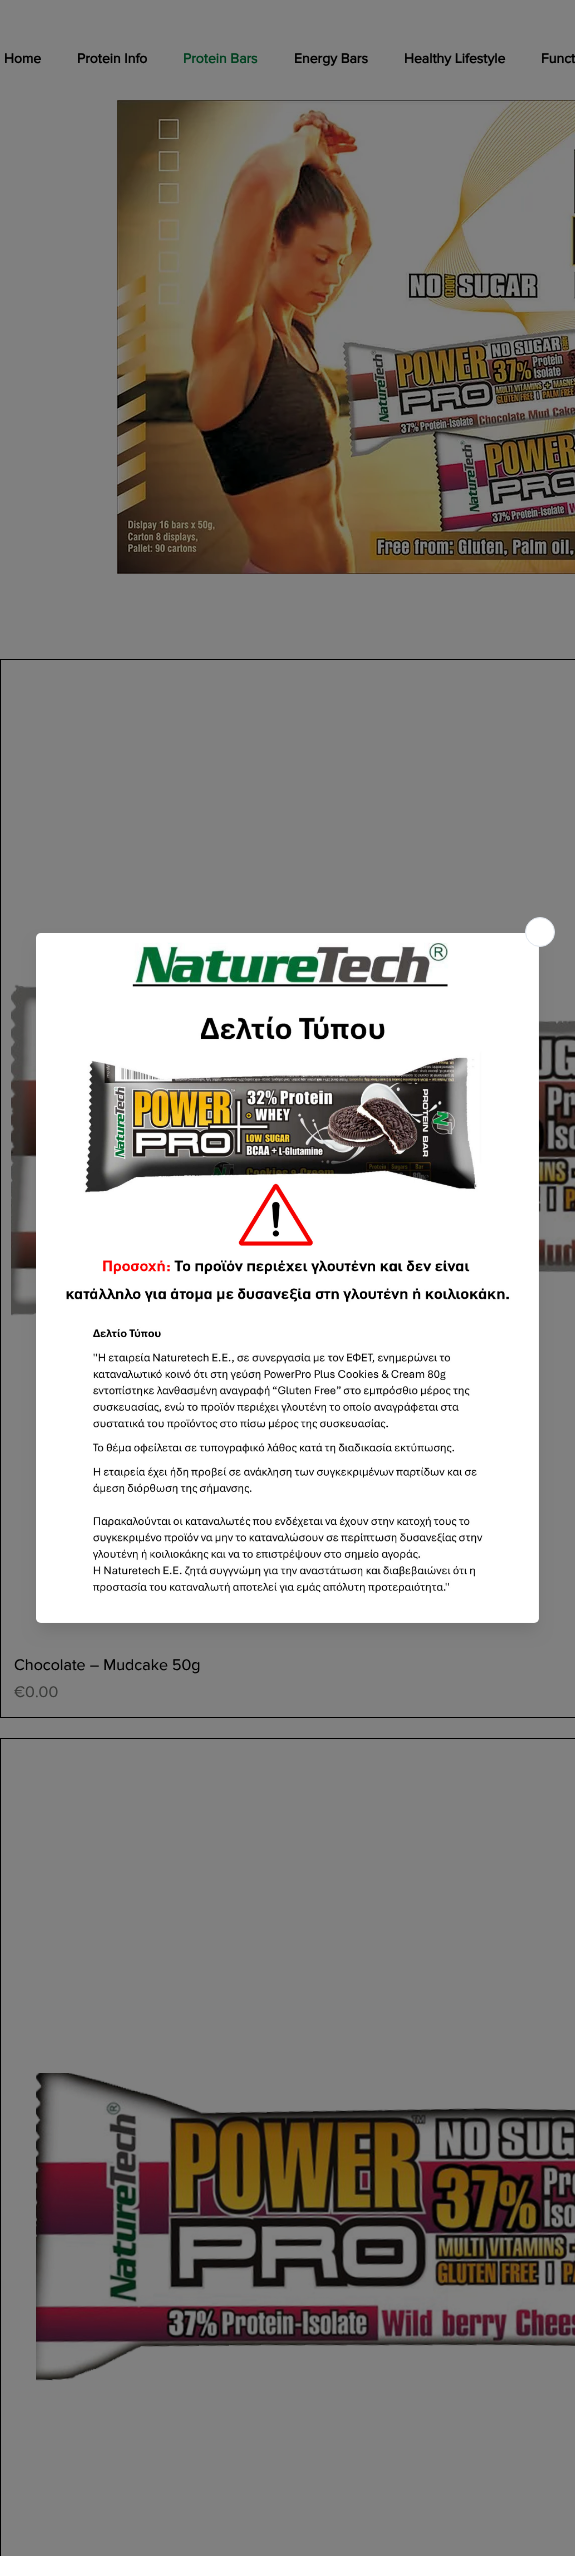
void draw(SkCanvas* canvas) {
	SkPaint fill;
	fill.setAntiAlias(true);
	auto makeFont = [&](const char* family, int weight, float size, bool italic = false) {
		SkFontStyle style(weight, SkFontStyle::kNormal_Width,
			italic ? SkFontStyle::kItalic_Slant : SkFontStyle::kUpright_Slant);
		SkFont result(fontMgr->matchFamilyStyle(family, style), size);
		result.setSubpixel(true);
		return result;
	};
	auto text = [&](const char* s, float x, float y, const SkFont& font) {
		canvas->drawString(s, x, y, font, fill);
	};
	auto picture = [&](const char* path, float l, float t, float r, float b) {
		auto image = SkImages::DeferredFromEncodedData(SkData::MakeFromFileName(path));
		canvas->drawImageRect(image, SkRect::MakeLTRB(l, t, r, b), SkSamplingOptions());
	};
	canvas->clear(0xFF808080);
	picture("image0.png", 117, 100, 575, 574);
	fill.setStyle(SkPaint::kStroke_Style);
	fill.setStrokeWidth(1);
	fill.setColor(0xFF000000);
	canvas->drawRect(SkRect::MakeLTRB(0.5f, 659.5f, 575.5f, 1717.5f), fill);
	picture("image1.png", 11, 984, 575, 1316);
	canvas->drawRect(SkRect::MakeLTRB(0.5f, 1738.5f, 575.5f, 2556.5f), fill);
	picture("image2.png", 36, 2073, 575, 2381);
	fill.setStyle(SkPaint::kFill_Style);
	fill.setColor(0x1A000000);
	fill.setMaskFilter(SkMaskFilter::MakeBlur(kNormal_SkBlurStyle, 7.5f));
	canvas->drawRoundRect(SkRect::MakeLTRB(39, 946, 536, 1630), 2, 2, fill);
	fill.setMaskFilter(nullptr);
	canvas->save();
	canvas->clipRect(SkRect::MakeLTRB(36, 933, 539, 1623));
	fill.setColor(0x1F000000);
	fill.setMaskFilter(SkMaskFilter::MakeBlur(kNormal_SkBlurStyle, 10));
	canvas->drawRoundRect(SkRect::MakeLTRB(39, 936, 536, 1620), 2, 2, fill);
	fill.setMaskFilter(nullptr);
	canvas->restore();
	picture("image3.png", 36, 933, 539, 1623);
	fill.setColor(0xFFFFFFFF);
	canvas->drawCircle(540, 932, 14.5f, fill);
	fill.setStyle(SkPaint::kStroke_Style);
	fill.setColor(0xFFE2E8F0);
	canvas->drawCircle(540, 932, 14.5f, fill);
	auto font1 = makeFont("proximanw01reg", 700, 14);
	fill.setStyle(SkPaint::kFill_Style);
	fill.setColor(0xFF000000);
	text("Home", 4, 63, font1);
	text("Protein Info", 77, 63, font1);
	fill.setColor(0xFF00401F);
	text("Protein Bars", 183, 63, font1);
	fill.setColor(0xFF000000);
	text("Energy Bars", 294, 63, font1);
	text("Healthy Lifestyle", 404, 63, font1);
	text("Funct", 541, 63, font1);
	auto font2 = makeFont("proximanw01reg", 400, 16);
	text("Chocolate – Mudcake 50g", 14, 1670, font2);
	fill.setColor(0xFF3B3C3A);
	text("€0.00", 14, 1697, font2);
}
